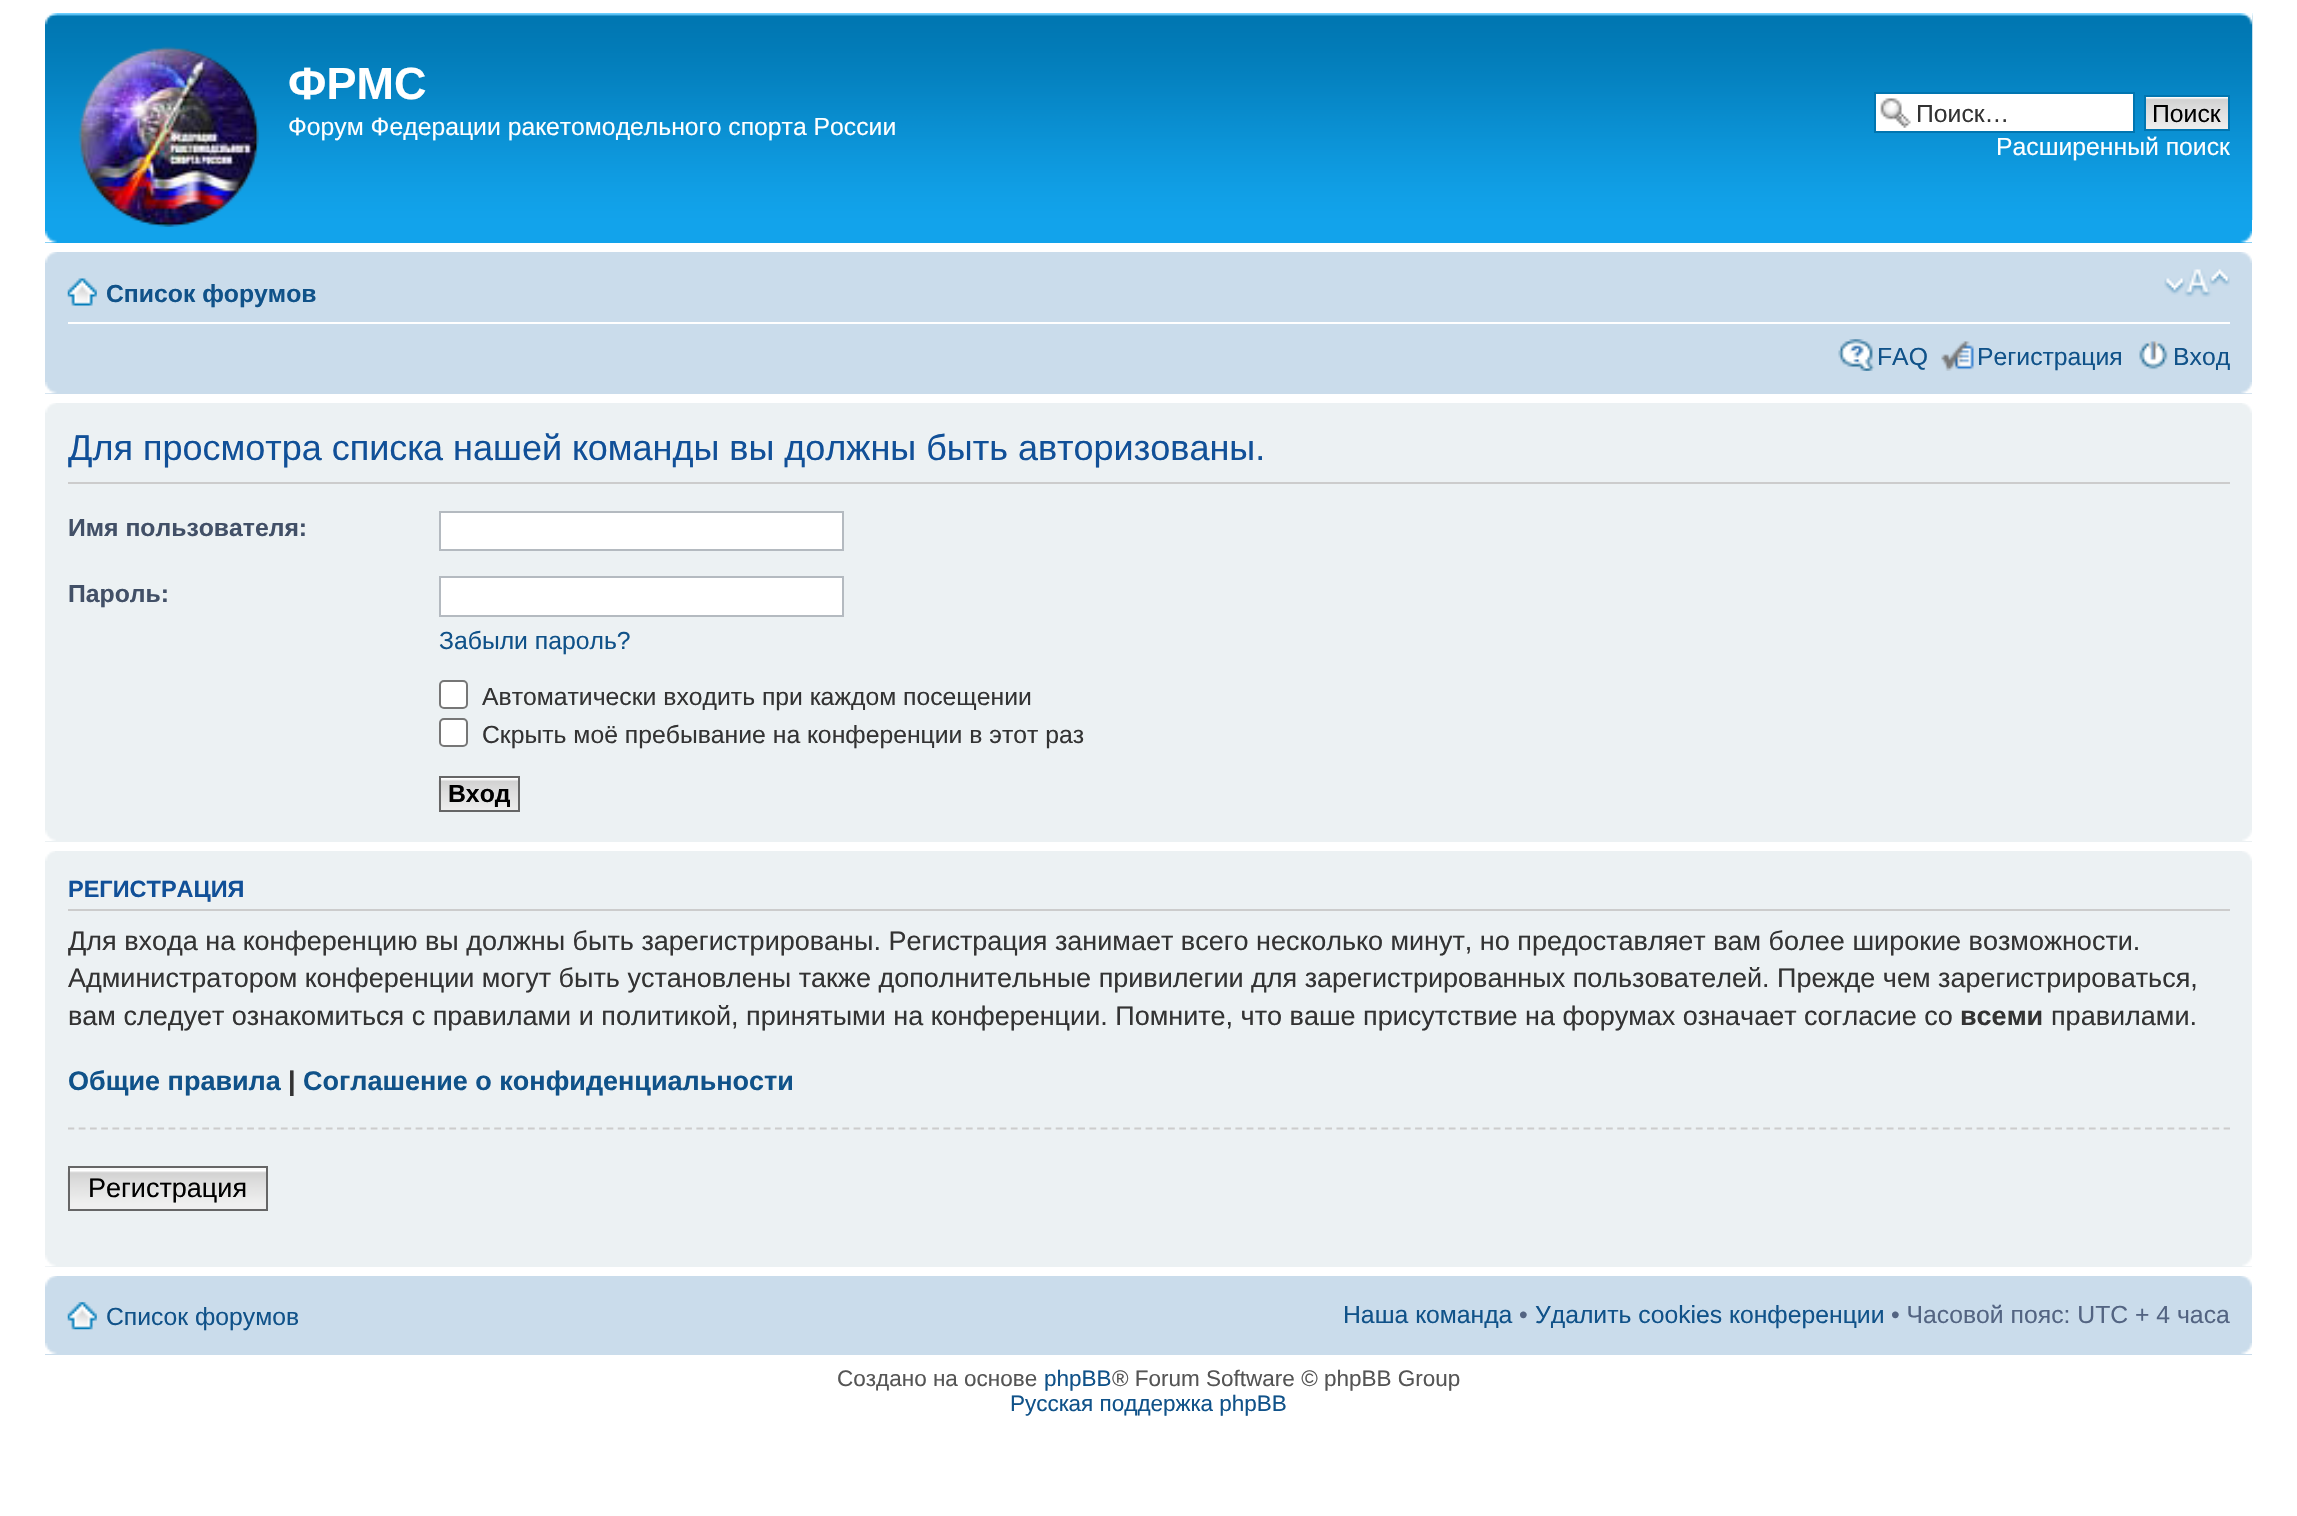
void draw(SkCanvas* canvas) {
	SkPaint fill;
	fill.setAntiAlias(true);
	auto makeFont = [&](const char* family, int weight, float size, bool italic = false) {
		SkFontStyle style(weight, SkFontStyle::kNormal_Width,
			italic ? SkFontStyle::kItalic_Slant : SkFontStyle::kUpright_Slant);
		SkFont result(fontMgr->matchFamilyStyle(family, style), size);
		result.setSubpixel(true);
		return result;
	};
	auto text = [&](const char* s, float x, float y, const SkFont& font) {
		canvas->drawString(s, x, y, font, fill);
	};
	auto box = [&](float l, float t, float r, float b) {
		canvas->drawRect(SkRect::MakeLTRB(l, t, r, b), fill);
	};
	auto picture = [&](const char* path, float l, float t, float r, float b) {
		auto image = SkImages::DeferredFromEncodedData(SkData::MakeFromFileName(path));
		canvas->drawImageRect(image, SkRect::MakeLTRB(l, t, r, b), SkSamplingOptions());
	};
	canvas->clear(0xFFFFFFFF);
	fill.setColor(0xFF12A3EB);
	box(45, 220, 2252, 243);
	picture("image0.png", 45, 13, 2253, 220);
	picture("image1.png", 45, 13, 57, 25);
	picture("image2.png", 2240, 13, 2253, 25);
	picture("image3.png", 78, 46, 259, 227);
	fill.setColor(0xFFFFFFFF);
	box(1876, 94, 2133, 131);
	picture("image4.png", 1880, 98, 1911, 128);
	fill.setStyle(SkPaint::kStroke_Style);
	fill.setStrokeWidth(2);
	fill.setColor(0xFF0075B0);
	canvas->drawRect(SkRect::MakeLTRB(1875, 93, 2134, 132), fill);
	fill.setStyle(SkPaint::kFill_Style);
	fill.setColor(0xFFFAFAFA);
	box(2146, 97, 2228, 98);
	picture("image5.png", 2146, 98, 2228, 129);
	fill.setStyle(SkPaint::kStroke_Style);
	fill.setColor(0xFF0075B0);
	canvas->drawRect(SkRect::MakeLTRB(2145, 96, 2229, 130), fill);
	picture("image6.png", 45, 231, 57, 243);
	picture("image7.png", 2240, 231, 2252, 243);
	fill.setStyle(SkPaint::kFill_Style);
	fill.setColor(0xFFCADCEB);
	box(45, 252, 2252, 394);
	picture("image8.png", 45, 252, 57, 263);
	picture("image9.png", 2240, 252, 2252, 263);
	fill.setColor(0xFFFFFFFF);
	box(68, 322, 2230, 324);
	picture("image10.png", 67, 278, 97, 306);
	picture("image11.png", 2164, 269, 2230, 297);
	picture("image12.png", 1838, 339, 1875, 371);
	picture("image13.png", 1941, 341, 1974, 371);
	picture("image14.png", 2139, 341, 2168, 370);
	picture("image15.png", 45, 382, 57, 394);
	picture("image16.png", 2241, 382, 2252, 394);
	fill.setColor(0xFFECF1F3);
	box(45, 403, 2252, 842);
	picture("image17.png", 45, 403, 56, 413);
	picture("image18.png", 2242, 403, 2252, 413);
	fill.setColor(0xFFCCCCCC);
	box(68, 482, 2230, 484);
	fill.setColor(0xFFFFFFFF);
	canvas->drawRect(SkRect::MakeLTRB(440, 512, 843, 550), fill);
	fill.setStyle(SkPaint::kStroke_Style);
	fill.setColor(0xFFB4BAC0);
	canvas->drawRect(SkRect::MakeLTRB(440, 512, 843, 550), fill);
	fill.setStyle(SkPaint::kFill_Style);
	fill.setColor(0xFFFFFFFF);
	canvas->drawRect(SkRect::MakeLTRB(440, 577, 843, 616), fill);
	fill.setStyle(SkPaint::kStroke_Style);
	fill.setColor(0xFFB4BAC0);
	canvas->drawRect(SkRect::MakeLTRB(440, 577, 843, 616), fill);
	fill.setStyle(SkPaint::kFill_Style);
	fill.setColor(0xFFFFFFFF);
	canvas->drawRoundRect(SkRect::MakeLTRB(440, 681, 467, 708), 4, 4, fill);
	fill.setStyle(SkPaint::kStroke_Style);
	fill.setColor(0xFF767676);
	canvas->drawRoundRect(SkRect::MakeLTRB(440, 681, 467, 708), 4, 4, fill);
	fill.setStyle(SkPaint::kFill_Style);
	fill.setColor(0xFFFFFFFF);
	canvas->drawRoundRect(SkRect::MakeLTRB(440, 719, 467, 746), 4, 4, fill);
	fill.setStyle(SkPaint::kStroke_Style);
	fill.setColor(0xFF767676);
	canvas->drawRoundRect(SkRect::MakeLTRB(440, 719, 467, 746), 4, 4, fill);
	picture("image19.png", 438, 778, 518, 812);
	fill.setColor(0xFF666666);
	canvas->drawRect(SkRect::MakeLTRB(440, 777, 519, 811), fill);
	picture("image20.png", 45, 830, 56, 841);
	picture("image21.png", 2242, 830, 2252, 841);
	fill.setStyle(SkPaint::kFill_Style);
	fill.setColor(0xFFECF1F3);
	box(45, 851, 2252, 1267);
	picture("image22.png", 45, 851, 55, 861);
	picture("image23.png", 2242, 851, 2252, 861);
	fill.setColor(0xFFCCCCCC);
	box(68, 909, 2230, 911);
	canvas->save();
	canvas->clipRect(SkRect::MakeLTRB(68, 862, 2230, 1256));
	fill.setStyle(SkPaint::kStroke_Style);
	fill.setStrokeWidth(2.2f);
	fill.setPathEffect(SkDashPathEffect::Make({{6.75f, 4.48f}}, 0));
	canvas->drawPath(SkPathBuilder().moveTo(67.5f, 1128.5f).lineTo(2230, 1128.5f).detach(), fill);
	fill.setPathEffect(nullptr);
	canvas->restore();
	picture("image24.png", 67, 1170, 266, 1210);
	fill.setStyle(SkPaint::kFill_Style);
	fill.setColor(0xFFFAFAFA);
	box(70, 1168, 266, 1170);
	fill.setStyle(SkPaint::kStroke_Style);
	fill.setStrokeWidth(2);
	fill.setColor(0xFF666666);
	canvas->drawRect(SkRect::MakeLTRB(69, 1167, 267, 1210), fill);
	picture("image25.png", 45, 1255, 56, 1267);
	picture("image26.png", 2242, 1255, 2252, 1267);
	fill.setStyle(SkPaint::kFill_Style);
	fill.setColor(0xFFCADCEB);
	box(45, 1276, 2252, 1355);
	picture("image27.png", 45, 1276, 57, 1287);
	picture("image28.png", 2240, 1276, 2252, 1287);
	picture("image29.png", 67, 1302, 97, 1330);
	picture("image30.png", 45, 1343, 57, 1354);
	picture("image31.png", 2241, 1343, 2252, 1354);
	auto font1 = makeFont("Liberation Sans", 700, 45);
	fill.setColor(0xFFFFFFFF);
	text("ФРМС", 288, 99, font1);
	auto font2 = makeFont("Liberation Sans", 400, 24.75f);
	text("Форум Федерации ракетомодельного спорта России", 288, 135, font2);
	fill.setColor(0xFF333333);
	text("Поиск…", 1916, 122, font2);
	fill.setColor(0xFF000000);
	text("Поиск", 2152, 122, font2);
	fill.setColor(0xFFFFFFFF);
	text("Расширенный поиск", 1996, 155, font2);
	auto font3 = makeFont("Liberation Sans", 700, 24.75f);
	fill.setColor(0xFF105289);
	text("Список форумов", 106, 302, font3);
	text("FAQ", 1877, 365, font2);
	text("Регистрация", 1977, 365, font2);
	text("Вход", 2173, 365, font2);
	canvas->save();
	canvas->clipRect(SkRect::MakeLTRB(68, 414, 2230, 830));
	auto font4 = makeFont("Liberation Sans", 400, 36);
	fill.setColor(0xFF115098);
	text("Для просмотра списка нашей команды вы должны быть авторизованы.", 68, 460, font4);
	canvas->restore();
	fill.setColor(0xFF425067);
	text("Имя пользователя:", 68, 536, font3);
	text("Пароль:", 68, 602, font3);
	fill.setColor(0xFF105289);
	text("Забыли пароль?", 439, 649, font2);
	fill.setColor(0xFF333333);
	text("Автоматически входить при каждом посещении", 482, 705, font2);
	text("Скрыть моё пребывание на конференции в этот раз", 482, 743, font2);
	fill.setColor(0xFF000000);
	text("Вход", 448, 802, font3);
	auto font5 = makeFont("Liberation Sans", 700, 23.5f);
	fill.setColor(0xFF115098);
	text("РЕГИСТРАЦИЯ", 68, 897, font5);
	canvas->save();
	canvas->clipRect(SkRect::MakeLTRB(68, 862, 2230, 1256));
	auto font6 = makeFont("Liberation Sans", 400, 27);
	fill.setColor(0xFF333333);
	text("Для входа на конференцию вы должны быть зарегистрированы. Регистрация занимает всего несколько минут, но предоставляет вам более широкие возможности.", 68, 950, font6);
	canvas->restore();
	text("Администратором конференции могут быть установлены также дополнительные привилегии для зарегистрированных пользователей. Прежде чем зарегистрироваться,", 68, 987, font6);
	text("вам следует ознакомиться с правилами и политикой, принятыми на конференции. Помните, что ваше присутствие на форумах означает согласие со", 68, 1025, font6);
	auto font7 = makeFont("Liberation Sans", 700, 27);
	text("всеми", 1960, 1025, font7);
	text("правилами.", 2051, 1025, font6);
	fill.setColor(0xFF105289);
	text("Общие правила", 68, 1090, font7);
	fill.setColor(0xFF333333);
	text("|", 288, 1090, font7);
	fill.setColor(0xFF105289);
	text("Соглашение о конфиденциальности", 303, 1090, font7);
	fill.setColor(0xFF000000);
	text("Регистрация", 88, 1197, font6);
	fill.setColor(0xFF105289);
	text("Список форумов", 106, 1325, font2);
	text("Наша команда", 1343, 1323, font2);
	fill.setColor(0xFF536482);
	text("•", 1519, 1323, font2);
	fill.setColor(0xFF105289);
	text("Удалить cookies конференции", 1535, 1323, font2);
	fill.setColor(0xFF536482);
	text("• Часовой пояс: UTC + 4 часа", 1891, 1323, font2);
	auto font8 = makeFont("Liberation Sans", 400, 22.5f);
	fill.setColor(0xFF555555);
	text("Создано на основе", 837, 1386, font8);
	fill.setColor(0xFF105289);
	text("phpBB", 1044, 1386, font8);
	fill.setColor(0xFF555555);
	text("® Forum Software © phpBB Group", 1112, 1386, font8);
	fill.setColor(0xFF105289);
	text("Русская поддержка phpBB", 1010, 1411, font8);
}
